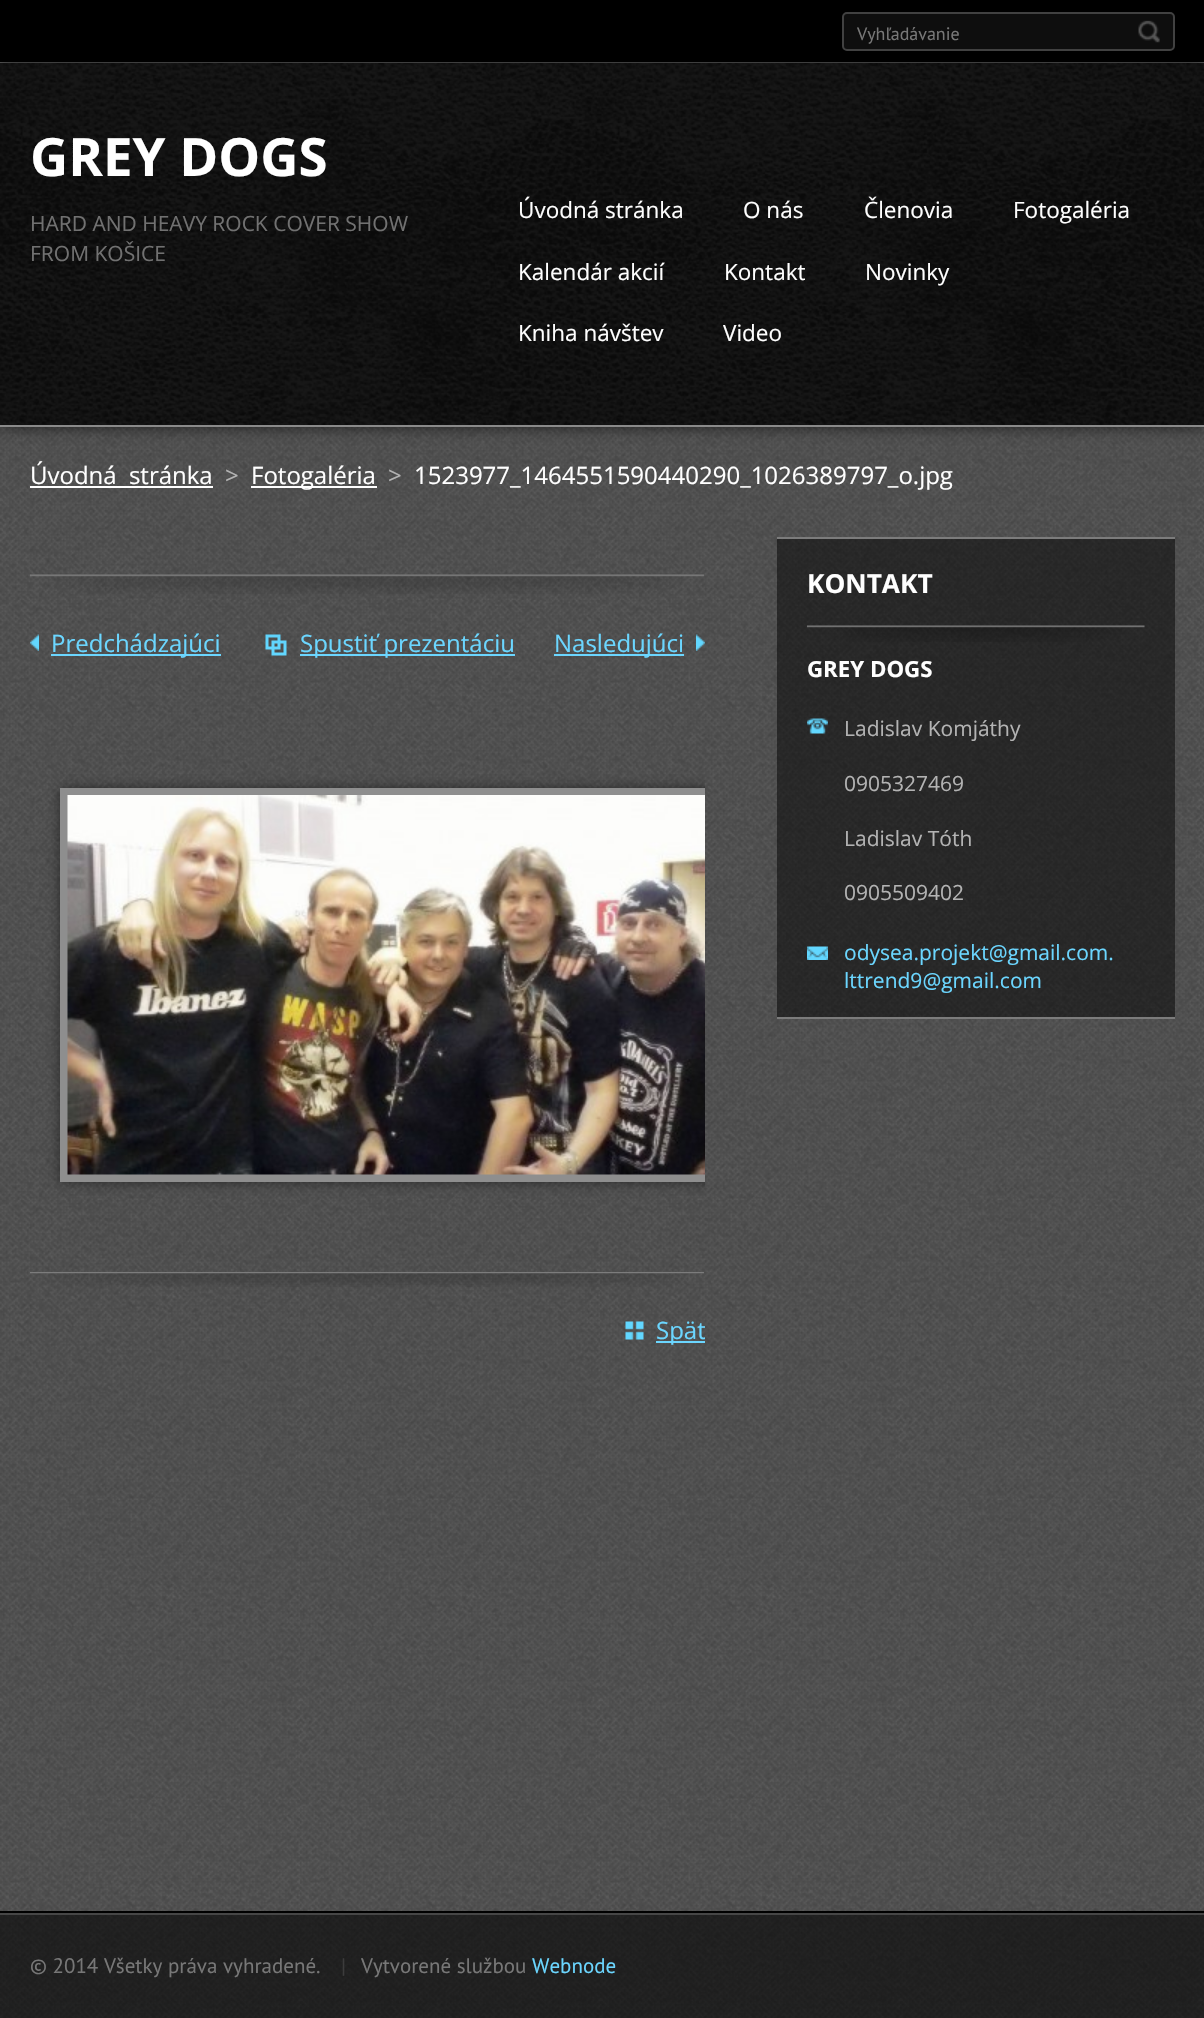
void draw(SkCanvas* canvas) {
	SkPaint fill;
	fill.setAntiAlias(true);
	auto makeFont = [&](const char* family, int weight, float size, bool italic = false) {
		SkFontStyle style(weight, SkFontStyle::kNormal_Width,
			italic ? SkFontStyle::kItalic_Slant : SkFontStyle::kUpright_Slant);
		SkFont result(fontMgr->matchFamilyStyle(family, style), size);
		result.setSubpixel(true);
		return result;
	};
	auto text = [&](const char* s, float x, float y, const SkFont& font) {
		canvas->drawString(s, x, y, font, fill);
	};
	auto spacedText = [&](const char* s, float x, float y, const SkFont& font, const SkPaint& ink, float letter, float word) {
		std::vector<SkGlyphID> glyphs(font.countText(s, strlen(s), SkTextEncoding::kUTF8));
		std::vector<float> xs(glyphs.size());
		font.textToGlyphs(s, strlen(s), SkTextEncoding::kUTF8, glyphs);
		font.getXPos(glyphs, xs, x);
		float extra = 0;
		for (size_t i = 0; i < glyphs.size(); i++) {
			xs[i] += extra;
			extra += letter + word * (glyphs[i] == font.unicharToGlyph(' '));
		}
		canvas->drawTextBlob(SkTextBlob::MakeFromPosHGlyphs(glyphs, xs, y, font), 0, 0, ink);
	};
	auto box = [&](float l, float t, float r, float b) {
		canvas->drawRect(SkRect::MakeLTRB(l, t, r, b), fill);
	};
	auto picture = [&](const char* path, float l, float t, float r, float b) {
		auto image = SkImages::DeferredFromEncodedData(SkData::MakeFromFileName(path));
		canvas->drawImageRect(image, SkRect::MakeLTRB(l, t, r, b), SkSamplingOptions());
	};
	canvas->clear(0xFFFFFFFF);
	picture("image0.png", 0, 427, 1204, 2018);
	fill.setColor(0xFF000000);
	box(0, 0, 1204, 62);
	fill.setColor(0xFF5E5E5E);
	box(0, 62, 1204, 63);
	fill.setColor(0xB3000000);
	fill.setMaskFilter(SkMaskFilter::MakeBlur(kNormal_SkBlurStyle, 7.5f));
	canvas->drawRect(SkRect::MakeLTRB(0, 63, 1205, 426), fill);
	fill.setMaskFilter(nullptr);
	fill.setColor(0xFF0E0E0E);
	canvas->drawRoundRect(SkRect::MakeLTRB(843, 13, 1174, 50), 4, 4, fill);
	fill.setStyle(SkPaint::kStroke_Style);
	fill.setStrokeWidth(2);
	fill.setColor(0xFF414141);
	canvas->drawRoundRect(SkRect::MakeLTRB(843, 13, 1174, 50), 4, 4, fill);
	picture("image1.png", 1138, 20, 1160, 43);
	picture("image2.png", 0, 63, 1204, 425);
	fill.setStyle(SkPaint::kFill_Style);
	fill.setColor(0xFF8A8A8A);
	box(0, 425, 1204, 427);
	fill.setColor(0xFFFFFFFF);
	box(30, 486, 213, 488);
	box(251, 486, 377, 488);
	picture("image3.png", 30, 574, 704, 594);
	picture("image4.png", 30, 634, 39, 651);
	fill.setColor(0xFF6BD6FF);
	box(51, 654, 221, 656);
	picture("image5.png", 265, 634, 287, 656);
	box(300, 654, 515, 656);
	picture("image6.png", 696, 634, 705, 651);
	box(554, 654, 684, 656);
	picture("image7.png", 30, 1272, 704, 1287);
	canvas->save();
	canvas->clipRect(SkRect::MakeLTRB(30, 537, 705, 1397));
	fill.setColor(0x80000000);
	fill.setMaskFilter(SkMaskFilter::MakeBlur(kNormal_SkBlurStyle, 6));
	canvas->drawRect(SkRect::MakeLTRB(60, 788, 750, 1182), fill);
	fill.setMaskFilter(nullptr);
	canvas->restore();
	canvas->save();
	canvas->clipRect(SkRect::MakeLTRB(30, 537, 705, 1397));
	fill.setStyle(SkPaint::kStroke_Style);
	fill.setStrokeWidth(8);
	fill.setColor(0xFF8E8E8E);
	canvas->drawRect(SkRect::MakeLTRB(64, 792, 746, 1178), fill);
	canvas->restore();
	picture("image8.png", 67, 795, 705, 1175);
	picture("image9.png", 625, 1321, 644, 1340);
	fill.setStyle(SkPaint::kFill_Style);
	fill.setColor(0xFF6BD6FF);
	box(656, 1341, 705, 1343);
	fill.setColor(0x80000000);
	box(777, 539, 1175, 1017);
	fill.setColor(0xFF7C7C7C);
	box(777, 537, 1175, 539);
	box(777, 1017, 1175, 1019);
	picture("image10.png", 807, 625, 1145, 642);
	picture("image11.png", 807, 718, 828, 734);
	picture("image12.png", 807, 946, 828, 960);
	fill.setColor(0xFF000000);
	box(0, 1911, 1204, 1913);
	fill.setColor(0x99000000);
	box(0, 1915, 1204, 2018);
	fill.setColor(0xFF464646);
	box(0, 1913, 1204, 1915);
	auto font1 = makeFont("PT Sans", 400, 18);
	fill.setColor(0xFF777777);
	text("Vyhľadávanie", 857, 40, font1);
	auto font2 = makeFont("Open Sans", 700, 52.75f);
	fill.setColor(0xFFFFFFFF);
	text("GREY DOGS", 30, 176, font2);
	auto font3 = makeFont("Open Sans", 400, 21);
	fill.setColor(0xFF717171);
	text("HARD AND HEAVY ROCK COVER SHOW", 30, 231, font3);
	text("FROM KOŠICE", 30, 261, font3);
	auto font4 = makeFont("Open Sans", 400, 22.5f);
	fill.setColor(0xFFFFFFFF);
	text("Úvodná stránka", 518, 218, font4);
	text("O nás", 743, 218, font4);
	text("Členovia", 864, 218, font4);
	text("Fotogaléria", 1013, 218, font4);
	text("Kalendár akcií", 518, 280, font4);
	text("Kontakt", 724, 280, font4);
	text("Novinky", 865, 280, font4);
	text("Kniha návštev", 518, 341, font4);
	text("Video", 723, 341, font4);
	auto font5 = makeFont("Open Sans", 400, 24);
	spacedText("Úvodná stránka", 30, 484, font5, fill, 0, 6);
	fill.setColor(0xFFB3B3B3);
	text(">", 225, 484, font5);
	fill.setColor(0xFFFFFFFF);
	text("Fotogaléria", 251, 484, font5);
	fill.setColor(0xFFB3B3B3);
	text(">", 388, 484, font5);
	fill.setColor(0xFFFFFFFF);
	text("1523977_1464551590440290_1026389797_o.jpg", 414, 484, font5);
	fill.setColor(0xFF6BD6FF);
	text("Predchádzajúci", 51, 652, font5);
	text("Spustiť prezentáciu", 300, 652, font5);
	text("Nasledujúci", 554, 652, font5);
	canvas->save();
	canvas->clipRect(SkRect::MakeLTRB(30, 537, 705, 1397));
	text("Späť", 656, 1339, font5);
	canvas->restore();
	auto font6 = makeFont("Open Sans", 700, 26.25f);
	fill.setColor(0xFFFFFFFF);
	text("KONTAKT", 807, 593, font6);
	auto font7 = makeFont("Open Sans", 700, 22.25f);
	text("GREY DOGS", 807, 677, font7);
	fill.setColor(0xFFB3B3B3);
	text("Ladislav Komjáthy", 844, 736, font3);
	text("0905327469", 844, 791, font3);
	text("Ladislav Tóth", 844, 846, font3);
	text("0905509402", 844, 900, font3);
	fill.setColor(0xFF6BD6FF);
	text("odysea.projekt@gmail.com.", 844, 960, font3);
	text("lttrend9@gmail.com", 844, 988, font3);
	auto font8 = makeFont("PT Sans", 400, 21);
	fill.setColor(0xFF777777);
	text("© 2014 Všetky práva vyhradené.", 30, 1973, font8);
	fill.setColor(0xFF3C3C3C);
	text("|", 341, 1973, font8);
	fill.setColor(0xFF777777);
	text("Vytvorené službou", 361, 1973, font8);
	fill.setColor(0xFF6BD6FF);
	text("Webnode", 532, 1973, font8);
}
